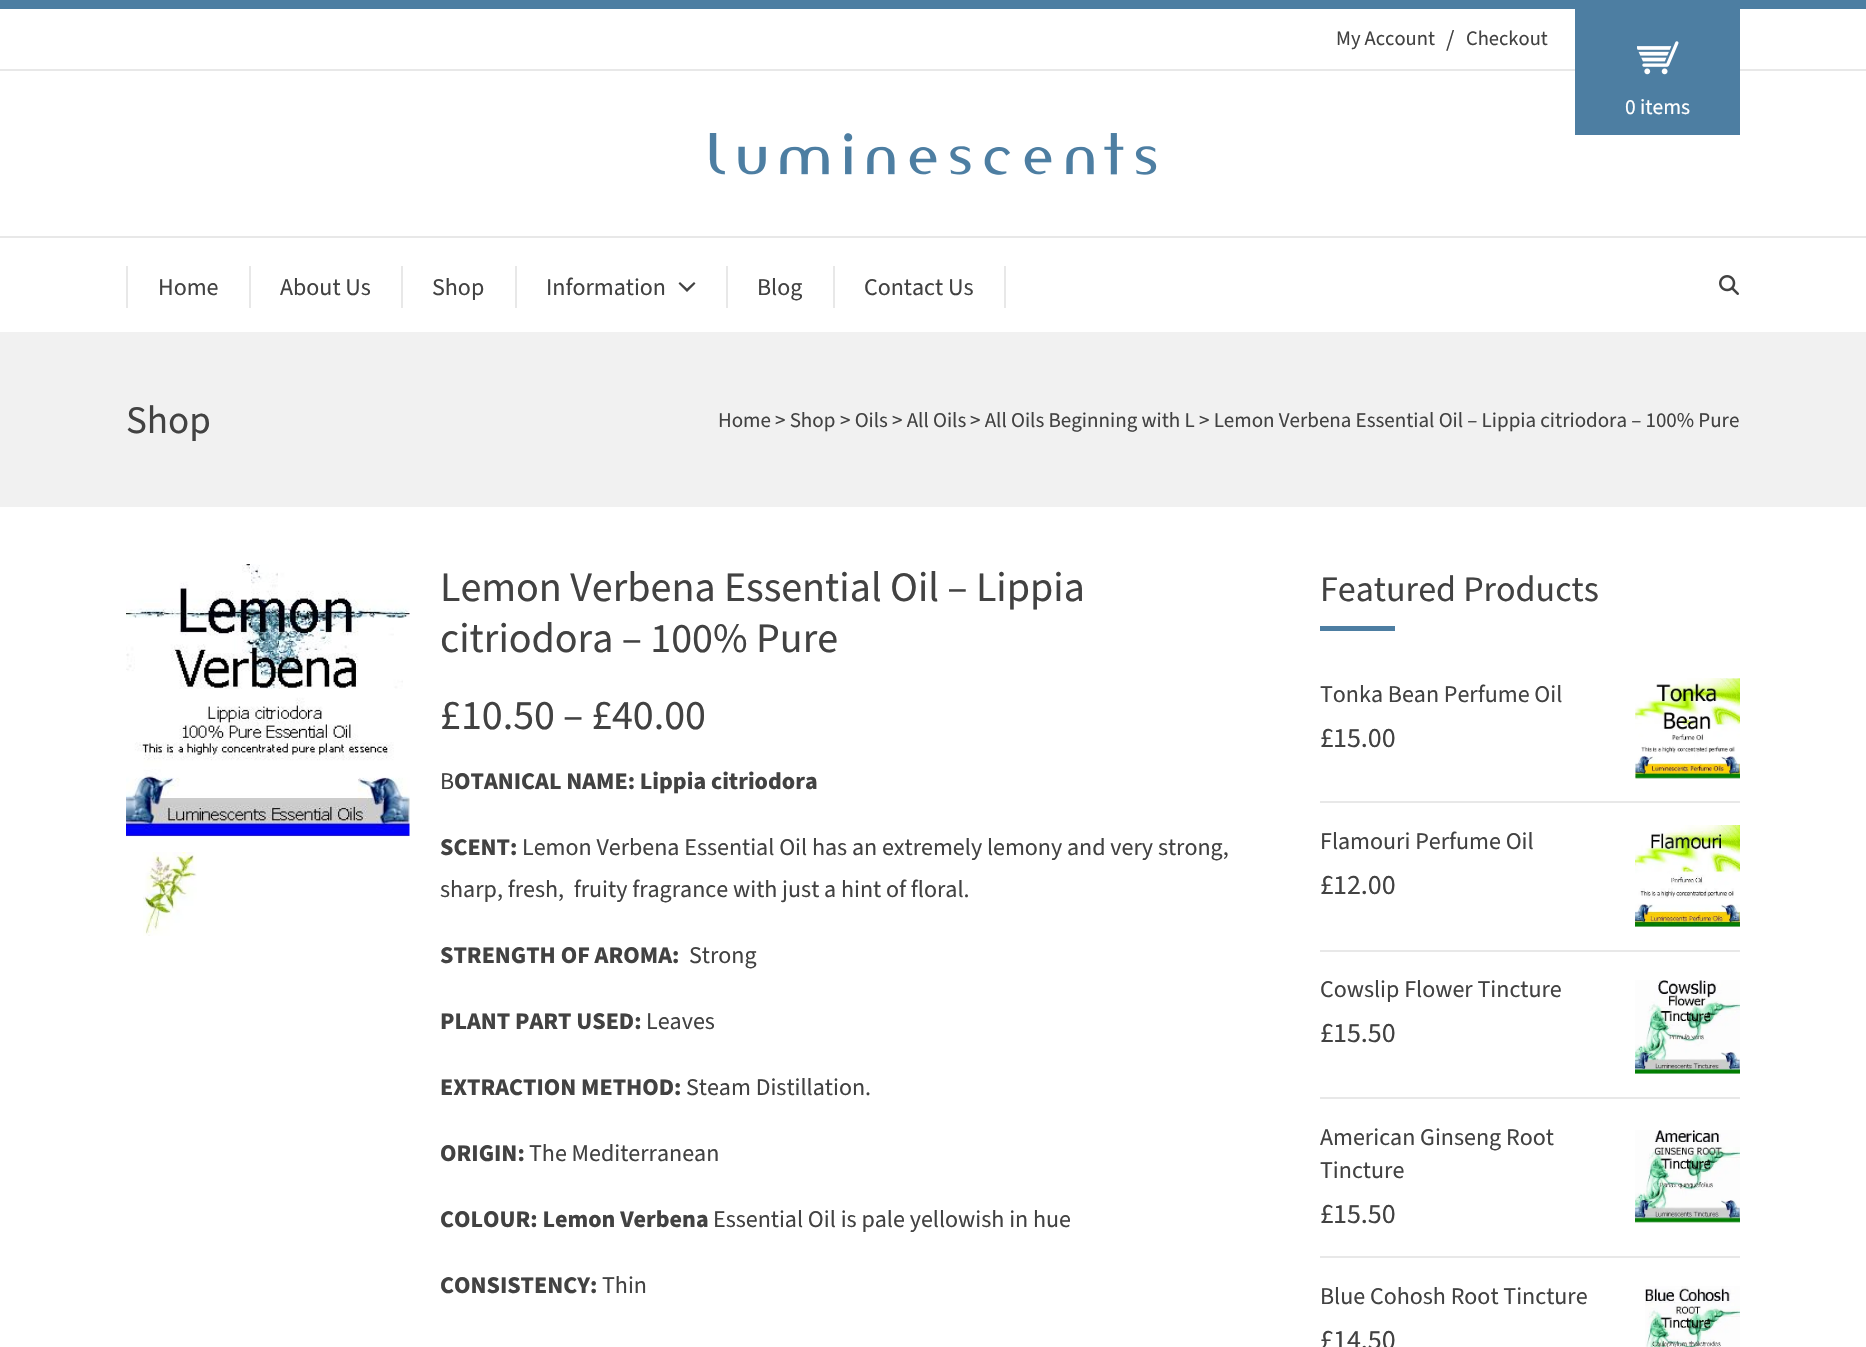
void draw(SkCanvas* canvas) {
	SkPaint fill;
	fill.setAntiAlias(true);
	auto makeFont = [&](const char* family, int weight, float size, bool italic = false) {
		SkFontStyle style(weight, SkFontStyle::kNormal_Width,
			italic ? SkFontStyle::kItalic_Slant : SkFontStyle::kUpright_Slant);
		SkFont result(fontMgr->matchFamilyStyle(family, style), size);
		result.setSubpixel(true);
		return result;
	};
	auto text = [&](const char* s, float x, float y, const SkFont& font) {
		canvas->drawString(s, x, y, font, fill);
	};
	auto box = [&](float l, float t, float r, float b) {
		canvas->drawRect(SkRect::MakeLTRB(l, t, r, b), fill);
	};
	auto picture = [&](const char* path, float l, float t, float r, float b) {
		auto image = SkImages::DeferredFromEncodedData(SkData::MakeFromFileName(path));
		canvas->drawImageRect(image, SkRect::MakeLTRB(l, t, r, b), SkSamplingOptions());
	};
	canvas->clear(0xFFFFFFFF);
	fill.setColor(0xFF4D7EA2);
	box(0, 0, 1866, 9);
	fill.setColor(0xFFE8E8E8);
	box(0, 69, 1866, 71);
	fill.setColor(0xFF4D7EA2);
	box(1575, 9, 1740, 135);
	picture("image0.png", 1637, 41, 1679, 75);
	fill.setColor(0xFFE8E8E8);
	box(0, 236, 1866, 238);
	picture("image1.png", 709, 133, 1157, 175);
	box(249, 266, 251, 308);
	box(126, 266, 128, 308);
	box(401, 266, 403, 308);
	box(515, 266, 517, 308);
	box(726, 266, 728, 308);
	fill.setColor(0xFF424242);
	canvas->drawPath(SkPathBuilder().moveTo(687, 292).lineTo(695.5f, 283.5f).lineTo(694, 282).lineTo(687, 288.5f).lineTo(680, 282).lineTo(678.5f, 283.5f).close().detach(), fill);
	fill.setColor(0xFFE8E8E8);
	box(833, 266, 835, 308);
	box(1004, 266, 1006, 308);
	picture("image2.png", 1719, 275, 1739, 295);
	fill.setColor(0xFFF1F1F1);
	box(0, 332, 1866, 507);
	picture("image3.png", 126, 564, 410, 837);
	picture("image4.png", 143, 852, 197, 936);
	fill.setColor(0xFF4D7EA2);
	box(1320, 626, 1395, 631);
	fill.setColor(0xFFE8E8E8);
	box(1320, 801, 1740, 803);
	picture("image5.png", 1635, 678, 1740, 779);
	box(1320, 950, 1740, 952);
	picture("image6.png", 1635, 825, 1740, 927);
	box(1320, 1097, 1740, 1099);
	picture("image7.png", 1635, 980, 1740, 1074);
	box(1320, 1256, 1740, 1258);
	picture("image8.png", 1635, 1130, 1740, 1223);
	picture("image9.png", 1645, 1286, 1740, 1347);
	auto font1 = makeFont("Source Sans Pro", 400, 20.5f);
	fill.setColor(0xFF424242);
	text("My Account", 1336, 45, font1);
	auto font2 = makeFont("Source Sans Pro", 400, 24);
	text("/", 1446, 47, font2);
	text("Checkout", 1466, 45, font1);
	auto font3 = makeFont("Source Sans Pro", 400, 21.5f);
	fill.setColor(0xFFFFFFFF);
	text("0 items", 1625, 114, font3);
	fill.setColor(0xFF424242);
	text("Home", 158, 295, font2);
	text("About Us", 280, 295, font2);
	text("Shop", 432, 295, font2);
	text("Information", 546, 295, font2);
	text("Blog", 757, 295, font2);
	text("Contact Us", 864, 295, font2);
	auto font4 = makeFont("Source Sans Pro", 400, 39);
	text("Shop", 126, 433, font4);
	auto font5 = makeFont("Source Sans Pro", 400, 21);
	text("Home", 718, 427, font5);
	text("> Shop", 775, 427, font5);
	text("> Oils", 840, 427, font5);
	text("> All Oils", 892, 427, font5);
	text("> All Oils Beginning with L", 970, 427, font5);
	text("> Lemon Verbena Essential Oil – Lippia citriodora – 100% Pure", 1199, 427, font5);
	auto font6 = makeFont("Source Sans Pro", 400, 42);
	text("Lemon Verbena Essential Oil – Lippia", 440, 601, font6);
	text("citriodora – 100% Pure", 440, 652, font6);
	text("£", 440, 729, font6);
	text("10.50", 461, 729, font6);
	text("– £", 563, 729, font6);
	text("40.00", 612, 729, font6);
	text("B", 440, 789, font2);
	auto font7 = makeFont("Source Sans Pro", 700, 24);
	text("OTANICAL NAME: Lippia citriodora", 454, 789, font7);
	text("SCENT:", 440, 855, font7);
	text("Lemon Verbena Essential Oil has an extremely lemony and very strong,", 522, 855, font2);
	text("sharp, fresh,  fruity fragrance with just a hint of floral.", 440, 897, font2);
	text("STRENGTH OF AROMA:", 440, 963, font7);
	text("Strong", 689, 963, font2);
	text("PLANT PART USED:", 440, 1029, font7);
	text("Leaves", 646, 1029, font2);
	text("EXTRACTION METHOD:", 440, 1095, font7);
	text("Steam Distillation.", 686, 1095, font2);
	text("ORIGIN:", 440, 1161, font7);
	text("The Mediterranean", 529, 1161, font2);
	text("COLOUR: Lemon Verbena", 440, 1227, font7);
	text("Essential Oil is pale yellowish in hue", 713, 1227, font2);
	text("CONSISTENCY:", 440, 1293, font7);
	text("Thin", 602, 1293, font2);
	auto font8 = makeFont("Source Sans Pro", 400, 36);
	text("Featured Products", 1320, 601, font8);
	text("Tonka Bean Perfume Oil", 1320, 702, font2);
	auto font9 = makeFont("Source Sans Pro", 400, 28);
	text("£", 1320, 747, font9);
	text("15.00", 1333, 747, font9);
	text("Flamouri Perfume Oil", 1320, 849, font2);
	text("£", 1320, 894, font9);
	text("12.00", 1333, 894, font9);
	text("Cowslip Flower Tincture", 1320, 997, font2);
	text("£", 1320, 1042, font9);
	text("15.50", 1333, 1042, font9);
	text("American Ginseng Root", 1320, 1145, font2);
	text("Tincture", 1320, 1178, font2);
	text("£", 1320, 1223, font9);
	text("15.50", 1333, 1223, font9);
	text("Blue Cohosh Root Tincture", 1320, 1304, font2);
	text("£", 1320, 1349, font9);
	text("14.50", 1333, 1349, font9);
}
